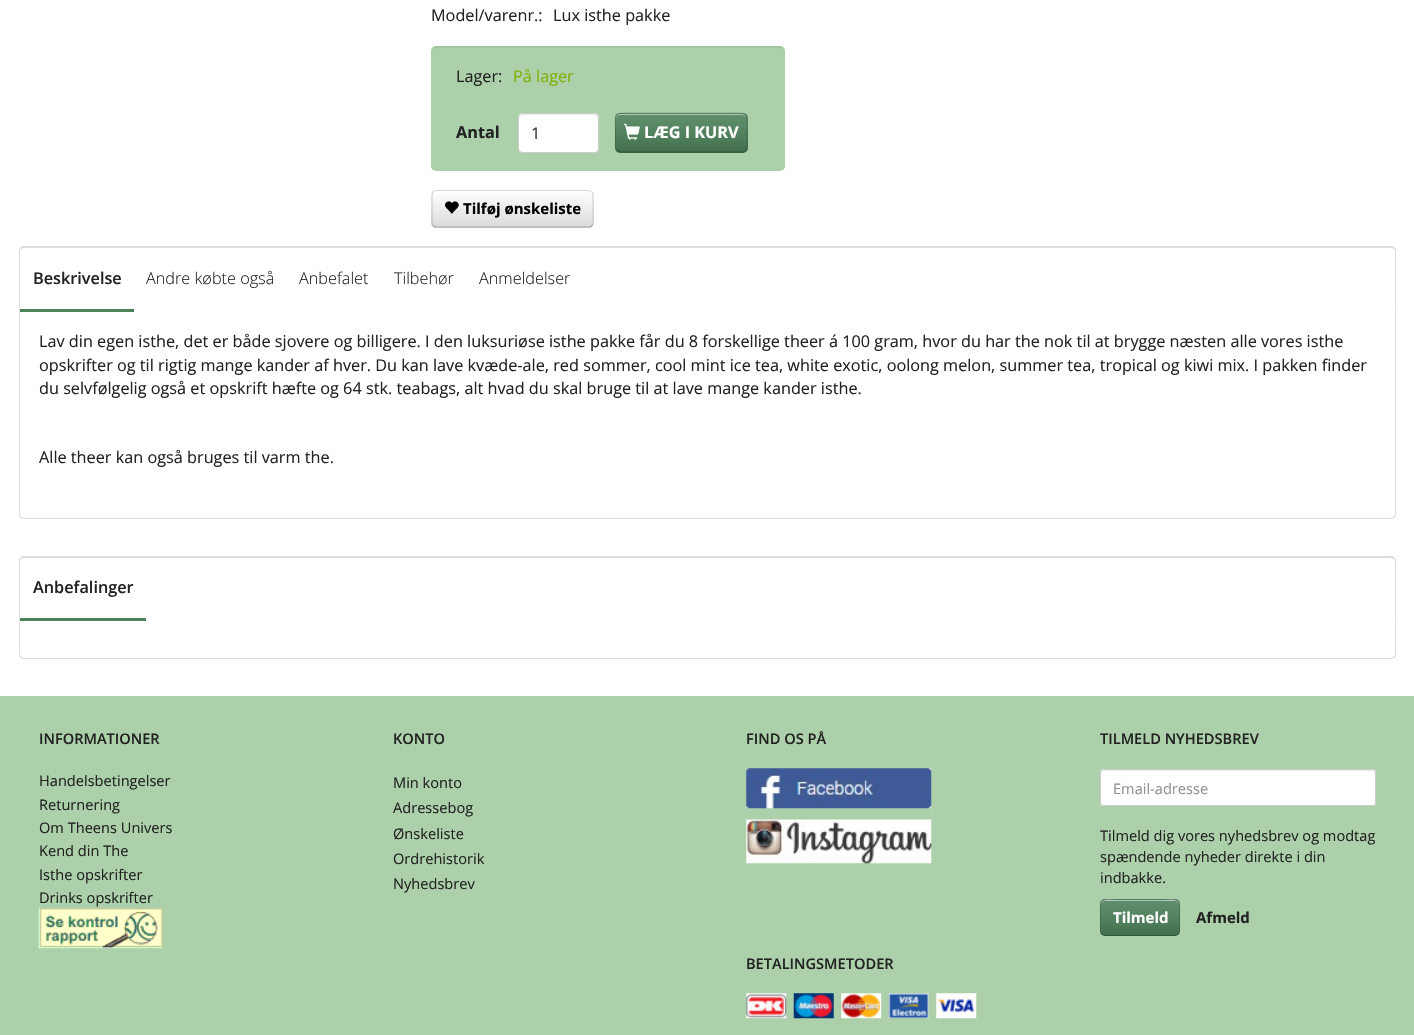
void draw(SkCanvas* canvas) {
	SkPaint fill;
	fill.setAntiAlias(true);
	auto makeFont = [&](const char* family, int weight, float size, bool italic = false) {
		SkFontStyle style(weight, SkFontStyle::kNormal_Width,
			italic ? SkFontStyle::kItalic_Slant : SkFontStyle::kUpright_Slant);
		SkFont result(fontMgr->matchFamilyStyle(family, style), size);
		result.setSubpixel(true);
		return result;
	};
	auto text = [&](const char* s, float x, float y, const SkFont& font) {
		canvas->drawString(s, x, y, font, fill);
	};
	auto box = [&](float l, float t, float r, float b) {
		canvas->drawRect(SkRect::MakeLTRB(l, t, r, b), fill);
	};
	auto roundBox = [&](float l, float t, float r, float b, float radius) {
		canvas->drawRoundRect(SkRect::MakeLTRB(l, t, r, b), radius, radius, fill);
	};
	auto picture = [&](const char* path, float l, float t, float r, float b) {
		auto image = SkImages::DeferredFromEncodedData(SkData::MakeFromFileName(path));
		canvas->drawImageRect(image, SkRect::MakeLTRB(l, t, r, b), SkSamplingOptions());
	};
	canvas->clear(0xFFFFFFFF);
	fill.setColor(0xFFACD1AA);
	roundBox(431, 46, 785, 171, 5);
	fill.setColor(0x0D000000);
	canvas->drawPath(SkPathBuilder().moveTo(436, 48).lineTo(780, 48).cubicTo(783, 48, 785, 50, 785, 52).lineTo(785, 51).cubicTo(785, 48, 783, 46, 780, 46).lineTo(436, 46).cubicTo(433, 46, 431, 48, 431, 51).lineTo(431, 52).cubicTo(431, 50, 433, 48, 436, 48).close().detach(), fill);
	fill.setColor(0xFFFFFFFF);
	roundBox(518, 113, 599, 153, 5);
	fill.setColor(0xFFECECEC);
	canvas->drawPath(SkPathBuilder().moveTo(522, 115).lineTo(594, 115).cubicTo(596, 115, 598, 117, 598, 119).cubicTo(598, 111, 587, 114, 582, 114).lineTo(535, 114).cubicTo(530, 114, 519, 111, 519, 119).cubicTo(519, 117, 520, 115, 522, 115).close().detach(), fill);
	fill.setStyle(SkPaint::kStroke_Style);
	fill.setStrokeWidth(1);
	fill.setColor(0xFFCCCCCC);
	canvas->drawRoundRect(SkRect::MakeLTRB(518.5f, 113.5f, 598.5f, 152.5f), 4.5f, 4.5f, fill);
	fill.setStyle(SkPaint::kFill_Style);
	fill.setColor(0xFF4C825A);
	roundBox(615, 113, 748, 153, 5);
	{
		const SkColor colors[] = {0x1AFFFFFF, 0x26000000};
		const float stops[] = {0, 1};
		const SkPoint ends[] = {{681, 113}, {681, 153}};
		fill.setShader(SkGradientShader::MakeLinear(ends, colors, stops, 2, SkTileMode::kClamp));
		fill.setAlpha(255);
	}
	roundBox(615, 113, 748, 153, 5);
	fill.setShader(nullptr);
	fill.setColor(0xFFAEC6B4);
	canvas->drawPath(SkPathBuilder().moveTo(620, 115).lineTo(742, 115).cubicTo(745, 115, 746, 117, 746, 119).lineTo(746, 118).cubicTo(746, 116, 744, 114, 742, 114).lineTo(620, 114).cubicTo(618, 114, 616, 116, 616, 118).lineTo(616, 119).cubicTo(616, 117, 618, 115, 620, 115).close().detach(), fill);
	fill.setStyle(SkPaint::kStroke_Style);
	fill.setStrokeWidth(1.2f);
	fill.setColor(0x40000000);
	canvas->drawPath(SkPathBuilder().moveTo(745.5f, 150.5f).lineTo(743, 152).lineTo(640.5f, 152).lineTo(620, 152).lineTo(617, 150.5f).detach(), fill);
	fill.setColor(0x26000000);
	canvas->drawPath(SkPathBuilder().moveTo(617, 150.5f).cubicTo(614, 148, 615.5f, 140.5f, 615.5f, 137.5f).cubicTo(615.5f, 108.5f, 610.5f, 113, 640.5f, 113).lineTo(722, 113).cubicTo(752, 113, 747, 108.5f, 747, 137.5f).cubicTo(747, 140.5f, 748.5f, 148, 745.5f, 150.5f).detach(), fill);
	picture("image0.png", 623, 123, 640, 140);
	fill.setStyle(SkPaint::kFill_Style);
	{
		const SkColor colors[] = {0xFFFFFFFF, 0xFFD9D9D9};
		const float stops[] = {0, 1};
		const SkPoint ends[] = {{513, 190}, {513, 228}};
		fill.setShader(SkGradientShader::MakeLinear(ends, colors, stops, 2, SkTileMode::kClamp));
		fill.setAlpha(255);
	}
	roundBox(431, 190, 594, 228, 5);
	fill.setShader(nullptr);
	fill.setColor(0x80FFFFFF);
	canvas->drawPath(SkPathBuilder().moveTo(436, 192).lineTo(589, 192).cubicTo(594, 192, 592, 203, 592, 205).lineTo(592, 225).cubicTo(593, 224, 593, 223, 593, 222).lineTo(593, 195).cubicTo(593, 193, 591, 191, 589, 191).lineTo(437, 191).cubicTo(436, 191, 434, 192, 434, 193).close().detach(), fill);
	fill.setStyle(SkPaint::kStroke_Style);
	fill.setColor(0xFFA4A4A4);
	canvas->drawPath(SkPathBuilder().moveTo(592, 225.5f).cubicTo(591, 226.5f, 590, 227, 589, 227).lineTo(436, 227).cubicTo(435, 227, 434, 226.5f, 433, 225.5f).detach(), fill);
	fill.setColor(0x26000000);
	canvas->drawPath(SkPathBuilder().moveTo(433, 225.5f).cubicTo(432.5f, 225, 432, 223.5f, 432, 222.5f).lineTo(432, 195).cubicTo(432, 194, 432.5f, 192.5f, 433, 192).cubicTo(434, 191, 435, 190.5f, 436, 190.5f).lineTo(589, 190.5f).cubicTo(590, 190.5f, 591, 191, 592, 192).cubicTo(592.5f, 192.5f, 593, 194, 593, 195).lineTo(593, 222.5f).cubicTo(593, 223.5f, 592.5f, 225, 592, 225.5f).detach(), fill);
	picture("image1.png", 445, 201, 459, 214);
	fill.setStyle(SkPaint::kFill_Style);
	fill.setColor(0xFFDDDDDD);
	canvas->drawPath(SkPathBuilder().moveTo(24, 248).lineTo(21, 249).lineTo(20, 248).lineTo(22, 246).lineTo(1393, 246).lineTo(1395, 248).lineTo(1394, 249).lineTo(1391, 248).close().detach(), fill);
	canvas->drawPath(SkPathBuilder().moveTo(1395, 248).cubicTo(1396, 248, 1396, 250, 1396, 251).lineTo(1396, 311).lineTo(1395, 310).lineTo(1395, 251).lineTo(1394, 249).close().detach(), fill);
	canvas->drawPath(SkPathBuilder().moveTo(19, 311).lineTo(20, 310).lineTo(20, 251).lineTo(21, 249).lineTo(20, 248).cubicTo(19, 248, 19, 250, 19, 251).close().detach(), fill);
	fill.setColor(0xFFFFFFFF);
	canvas->drawPath(SkPathBuilder().moveTo(25, 248).lineTo(134, 248).lineTo(134, 311).lineTo(20, 311).lineTo(20, 253).cubicTo(20, 250, 22, 248, 25, 248).close().detach(), fill);
	fill.setColor(0xFFDDDDDD);
	canvas->drawPath(SkPathBuilder(SkPathFillType::kEvenOdd).moveTo(19, 311).lineTo(1396, 311).lineTo(1396, 514).cubicTo(1396, 517, 1394, 519, 1391, 519).lineTo(24, 519).cubicTo(21, 519, 19, 517, 19, 514).close().moveTo(20, 311).lineTo(1395, 311).lineTo(1395, 514).cubicTo(1395, 516, 1393, 518, 1391, 518).lineTo(24, 518).cubicTo(22, 518, 20, 516, 20, 514).close().detach(), fill);
	fill.setColor(0xFF4C825A);
	box(20, 309, 134, 312);
	fill.setColor(0xFFDDDDDD);
	canvas->drawPath(SkPathBuilder().moveTo(24, 558).lineTo(21, 559).lineTo(20, 558).lineTo(22, 556).lineTo(1393, 556).lineTo(1395, 558).lineTo(1394, 559).lineTo(1391, 558).close().detach(), fill);
	canvas->drawPath(SkPathBuilder().moveTo(1395, 558).cubicTo(1396, 558, 1396, 560, 1396, 561).lineTo(1396, 620).lineTo(1395, 619).lineTo(1395, 561).lineTo(1394, 559).close().detach(), fill);
	canvas->drawPath(SkPathBuilder().moveTo(19, 620).lineTo(19, 561).cubicTo(19, 560, 19, 558, 20, 558).lineTo(21, 559).lineTo(20, 561).lineTo(20, 619).close().detach(), fill);
	fill.setColor(0xFFFFFFFF);
	canvas->drawPath(SkPathBuilder().moveTo(25, 558).lineTo(146, 558).lineTo(146, 620).lineTo(20, 620).lineTo(20, 563).cubicTo(20, 560, 22, 558, 25, 558).close().detach(), fill);
	fill.setColor(0xFFDDDDDD);
	canvas->drawPath(SkPathBuilder(SkPathFillType::kEvenOdd).moveTo(19, 620).lineTo(1396, 620).lineTo(1396, 654).cubicTo(1396, 657, 1394, 659, 1391, 659).lineTo(24, 659).cubicTo(21, 659, 19, 657, 19, 654).close().moveTo(20, 620).lineTo(1395, 620).lineTo(1395, 654).cubicTo(1395, 656, 1393, 658, 1391, 658).lineTo(24, 658).cubicTo(22, 658, 20, 656, 20, 654).close().detach(), fill);
	fill.setColor(0xFF4C825A);
	box(20, 618, 146, 621);
	fill.setColor(0xFFACD1AA);
	box(0, 696, 1414, 1035);
	picture("image2.png", 38, 908, 163, 949);
	picture("image3.png", 746, 768, 932, 809);
	picture("image4.png", 746, 819, 932, 864);
	picture("image5.png", 746, 993, 787, 1019);
	picture("image6.png", 793, 993, 834, 1019);
	picture("image7.png", 841, 993, 882, 1019);
	picture("image8.png", 888, 993, 929, 1019);
	picture("image9.png", 936, 993, 977, 1019);
	fill.setColor(0xFFFFFFFF);
	roundBox(1100, 769, 1376, 806, 4);
	fill.setColor(0xFFECECEC);
	canvas->drawPath(SkPathBuilder().moveTo(1104, 771).lineTo(1372, 771).cubicTo(1374, 771, 1375, 772, 1375, 774).lineTo(1375, 772).cubicTo(1375, 771, 1374, 770, 1372, 770).lineTo(1104, 770).cubicTo(1102, 770, 1101, 771, 1101, 772).lineTo(1101, 774).cubicTo(1101, 772, 1102, 771, 1104, 771).close().detach(), fill);
	fill.setStyle(SkPaint::kStroke_Style);
	fill.setStrokeWidth(1);
	fill.setColor(0xFFCCCCCC);
	canvas->drawRoundRect(SkRect::MakeLTRB(1100.5f, 769.5f, 1375.5f, 805.5f), 3.5f, 3.5f, fill);
	fill.setStyle(SkPaint::kFill_Style);
	fill.setColor(0xFF4C825A);
	roundBox(1100, 899, 1180, 936, 5);
	{
		const SkColor colors[] = {0x1AFFFFFF, 0x26000000};
		const float stops[] = {0, 1};
		const SkPoint ends[] = {{1140, 899}, {1140, 936}};
		fill.setShader(SkGradientShader::MakeLinear(ends, colors, stops, 2, SkTileMode::kClamp));
		fill.setAlpha(255);
	}
	roundBox(1100, 899, 1180, 936, 5);
	fill.setShader(nullptr);
	fill.setColor(0xFFAEC6B4);
	canvas->drawPath(SkPathBuilder().moveTo(1105, 901).lineTo(1175, 901).cubicTo(1177, 901, 1179, 903, 1179, 905).cubicTo(1179, 897, 1168, 900, 1163, 900).lineTo(1117, 900).cubicTo(1112, 900, 1101, 897, 1101, 905).cubicTo(1101, 903, 1103, 901, 1105, 901).close().detach(), fill);
	fill.setStyle(SkPaint::kStroke_Style);
	fill.setStrokeWidth(1.2f);
	fill.setColor(0x40000000);
	canvas->drawPath(SkPathBuilder().moveTo(1178, 934.5f).lineTo(1175.5f, 935.5f).lineTo(1104.5f, 935.5f).lineTo(1102, 934.5f).detach(), fill);
	fill.setColor(0x26000000);
	canvas->drawPath(SkPathBuilder().moveTo(1102, 934.5f).cubicTo(1100, 932.5f, 1100.5f, 929, 1100.5f, 926.5f).lineTo(1100.5f, 917.5f).cubicTo(1100.5f, 898, 1097.5f, 899.5f, 1116.5f, 899.5f).lineTo(1163.5f, 899.5f).cubicTo(1182.5f, 899.5f, 1179.5f, 898, 1179.5f, 917.5f).lineTo(1179.5f, 926.5f).cubicTo(1179.5f, 929, 1180, 932.5f, 1178, 934.5f).detach(), fill);
	auto font1 = makeFont("Open Sans", 400, 16.25f);
	fill.setStyle(SkPaint::kFill_Style);
	fill.setColor(0xFF222222);
	text("Model/varenr.:", 431, 21, font1);
	text("Lux isthe pakke", 553, 21, font1);
	text("Lager:", 456, 82, font1);
	fill.setColor(0xFF81B106);
	text("På lager", 513, 82, font1);
	auto font2 = makeFont("Open Sans", 700, 16.25f);
	fill.setColor(0xFF222222);
	text("Antal", 456, 138, font2);
	fill.setColor(0xFF383838);
	text("1", 531, 139, font1);
	fill.setColor(0xFFFFFFFF);
	text("LÆG I KURV", 644, 138, font2);
	auto font3 = makeFont("Open Sans", 700, 15);
	fill.setColor(0xFF000000);
	text("Tilføj ønskeliste", 463, 214, font3);
	auto font4 = makeFont("Open Sans", 600, 16.25f);
	fill.setColor(0xFF222222);
	text("Beskrivelse", 33, 284, font4);
	auto font5 = makeFont("Open Sans", 300, 16.25f);
	text("Andre købte også", 146, 284, font5);
	text("Anbefalet", 299, 284, font5);
	text("Tilbehør", 394, 284, font5);
	text("Anmeldelser", 479, 284, font5);
	text("Lav din egen isthe, det er både sjovere og billigere. I den luksuriøse isthe pakke får du 8 forskellige theer á 100 gram, hvor du har the nok til at brygge næsten alle vores isthe", 39, 347, font1);
	text("opskrifter og til rigtig mange kander af hver. Du kan lave kvæde-ale, red sommer, cool mint ice tea, white exotic, oolong melon, summer tea, tropical og kiwi mix. I pakken finder", 39, 371, font1);
	text("du selvfølgelig også et opskrift hæfte og 64 stk. teabags, alt hvad du skal bruge til at lave mange kander isthe.", 39, 394, font1);
	text("Alle theer kan også bruges til varm the.", 39, 463, font1);
	text("Anbefalinger", 33, 593, font4);
	auto font6 = makeFont("Open Sans", 600, 14.6f);
	text("INFORMATIONER", 39, 744, font6);
	auto font7 = makeFont("Open Sans", 400, 14.6f);
	text("Handelsbetingelser", 39, 786, font7);
	text("Returnering", 39, 810, font7);
	text("Om Theens Univers", 39, 833, font7);
	text("Kend din The", 39, 856, font7);
	text("Isthe opskrifter", 39, 880, font7);
	text("Drinks opskrifter", 39, 903, font7);
	text("KONTO", 393, 744, font6);
	text("Min konto", 393, 788, font7);
	text("Adressebog", 393, 813, font7);
	text("Ønskeliste", 393, 839, font7);
	text("Ordrehistorik", 393, 864, font7);
	text("Nyhedsbrev", 393, 889, font7);
	text("FIND OS PÅ", 746, 744, font6);
	text("BETALINGSMETODER", 746, 969, font6);
	text("TILMELD NYHEDSBREV", 1100, 744, font6);
	fill.setColor(0xFF919191);
	text("Email-adresse", 1113, 794, font7);
	fill.setColor(0xFF222222);
	text("Tilmeld dig vores nyhedsbrev og modtag", 1100, 841, font7);
	text("spændende nyheder direkte i din", 1100, 862, font7);
	text("indbakke.", 1100, 883, font7);
	fill.setColor(0xFFFFFFFF);
	text("Tilmeld", 1113, 923, font3);
	fill.setColor(0xFF222222);
	text("Afmeld", 1196, 923, font3);
}
